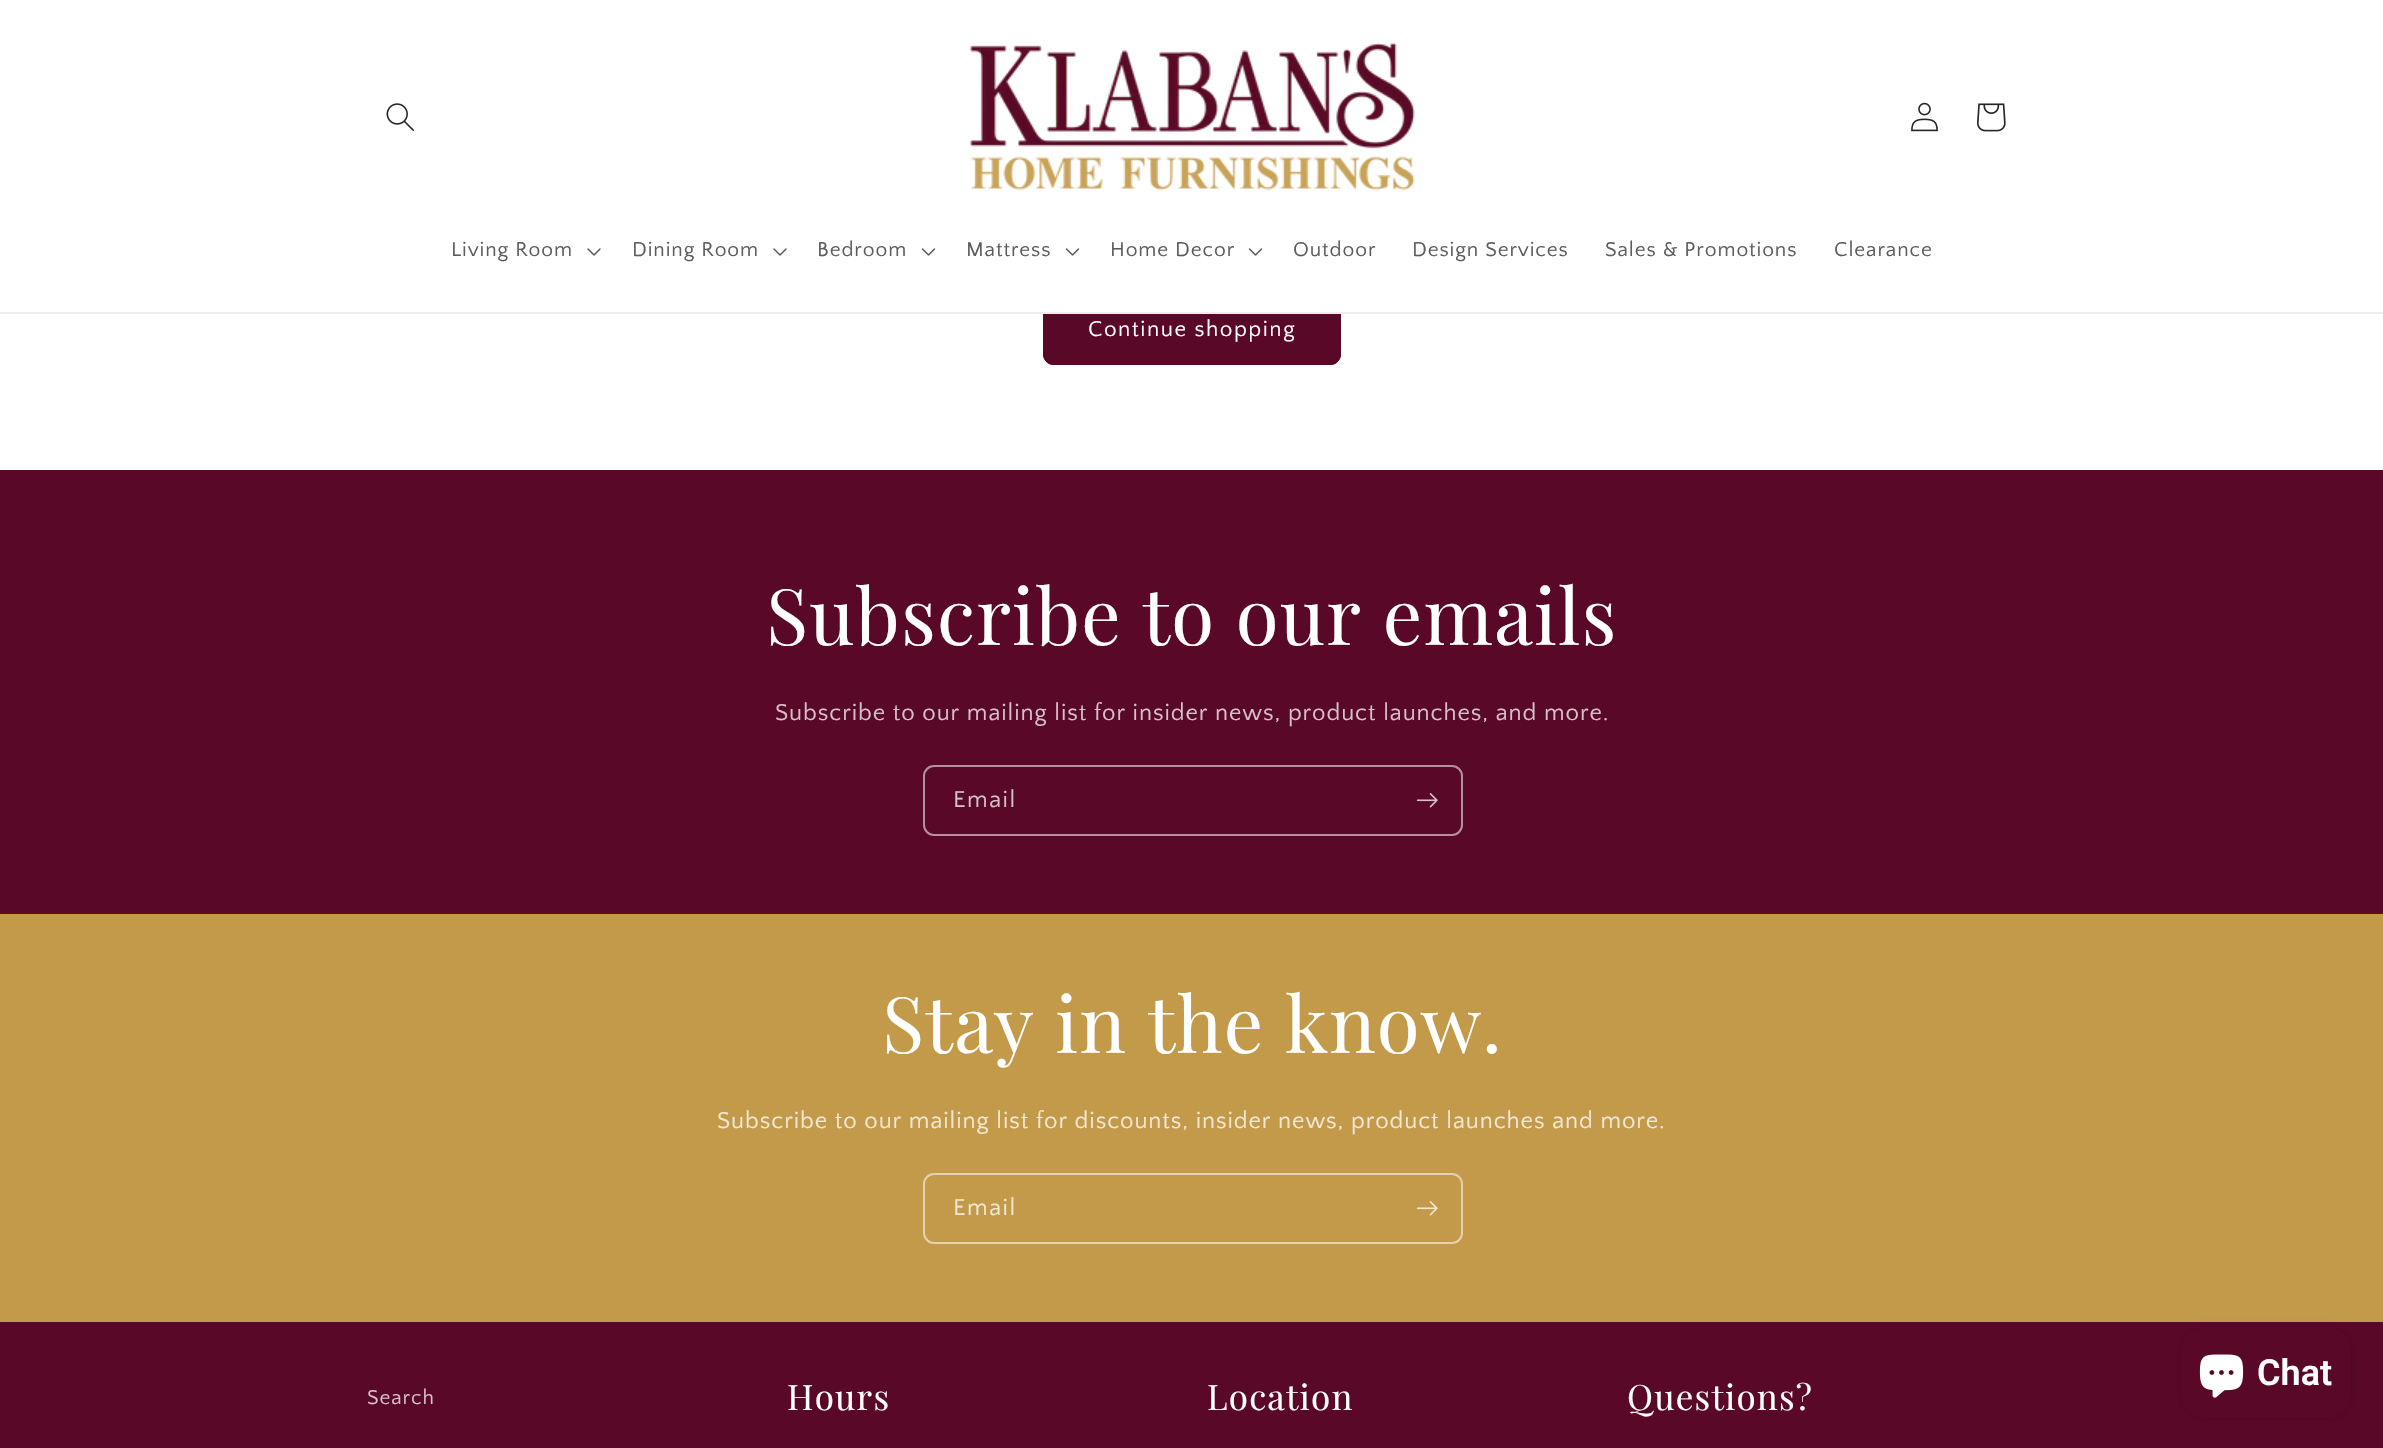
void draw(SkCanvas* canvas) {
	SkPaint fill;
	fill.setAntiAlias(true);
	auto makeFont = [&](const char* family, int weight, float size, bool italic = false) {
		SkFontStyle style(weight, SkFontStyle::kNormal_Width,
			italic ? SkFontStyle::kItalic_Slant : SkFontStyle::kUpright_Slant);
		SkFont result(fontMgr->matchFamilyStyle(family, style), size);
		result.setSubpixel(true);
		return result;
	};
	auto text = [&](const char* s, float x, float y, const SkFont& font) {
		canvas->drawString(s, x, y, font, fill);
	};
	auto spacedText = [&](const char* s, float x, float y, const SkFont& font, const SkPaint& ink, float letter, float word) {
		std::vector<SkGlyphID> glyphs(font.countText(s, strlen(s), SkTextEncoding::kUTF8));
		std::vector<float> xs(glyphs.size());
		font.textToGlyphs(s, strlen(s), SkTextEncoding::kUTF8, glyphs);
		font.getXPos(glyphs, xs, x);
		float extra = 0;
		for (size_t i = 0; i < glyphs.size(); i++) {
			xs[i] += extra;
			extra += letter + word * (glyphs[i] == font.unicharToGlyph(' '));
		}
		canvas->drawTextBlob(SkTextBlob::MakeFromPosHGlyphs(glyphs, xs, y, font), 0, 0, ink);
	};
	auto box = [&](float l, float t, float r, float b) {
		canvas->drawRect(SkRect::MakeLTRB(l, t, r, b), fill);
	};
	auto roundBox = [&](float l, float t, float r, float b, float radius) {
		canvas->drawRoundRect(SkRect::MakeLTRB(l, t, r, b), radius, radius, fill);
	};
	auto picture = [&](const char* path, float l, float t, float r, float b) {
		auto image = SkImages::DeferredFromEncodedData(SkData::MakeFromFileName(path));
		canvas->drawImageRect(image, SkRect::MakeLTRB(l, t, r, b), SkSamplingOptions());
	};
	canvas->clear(0xFFFFFFFF);
	fill.setColor(0xFF5A0827);
	roundBox(1043, 294, 1341, 365, 11);
	fill.setStyle(SkPaint::kStroke_Style);
	fill.setStrokeWidth(2);
	canvas->drawRoundRect(SkRect::MakeLTRB(1044, 295, 1340, 364), 10, 10, fill);
	fill.setStyle(SkPaint::kFill_Style);
	fill.setColor(0xFFFFFFFF);
	box(1043, 294, 1341, 312);
	fill.setColor(0xFFEEEEEE);
	box(0, 312, 2383, 314);
	picture("image0.png", 386, 103, 414, 131);
	picture("image1.png", 970, 42, 1415, 191);
	picture("image2.png", 1911, 102, 1938, 132);
	picture("image3.png", 1977, 103, 2006, 132);
	picture("image4.png", 587, 248, 601, 256);
	picture("image4.png", 773, 248, 787, 256);
	picture("image5.png", 921, 248, 936, 256);
	picture("image5.png", 1065, 248, 1080, 256);
	picture("image5.png", 1248, 248, 1263, 256);
	fill.setColor(0xFF5A0827);
	box(0, 470, 2383, 914);
	fill.setStyle(SkPaint::kStroke_Style);
	fill.setColor(0xFFB5909E);
	canvas->drawRoundRect(SkRect::MakeLTRB(924, 766, 1462, 835), 10, 10, fill);
	picture("image6.png", 1416, 793, 1438, 808);
	fill.setStyle(SkPaint::kFill_Style);
	fill.setColor(0xFFC39A4A);
	box(0, 914, 2383, 1322);
	fill.setStyle(SkPaint::kStroke_Style);
	fill.setColor(0xFFE4D2AE);
	canvas->drawRoundRect(SkRect::MakeLTRB(924, 1174, 1462, 1243), 10, 10, fill);
	picture("image7.png", 1416, 1201, 1438, 1216);
	fill.setStyle(SkPaint::kFill_Style);
	fill.setColor(0xFF5A0827);
	box(0, 1322, 2383, 1448);
	fill.setColor(0x26000000);
	fill.setMaskFilter(SkMaskFilter::MakeBlur(kNormal_SkBlurStyle, 4));
	canvas->drawRoundRect(SkRect::MakeLTRB(2181, 1328, 2351, 1418), 24, 24, fill);
	fill.setMaskFilter(nullptr);
	fill.setColor(0xFF5A0827);
	roundBox(2181, 1328, 2351, 1418, 24);
	picture("image8.png", 2199, 1354, 2244, 1398);
	auto font1 = makeFont("Quattrocento Sans", 400, 21);
	fill.setColor(0xFF5C5C5C);
	spacedText("Living Room", 451, 256, font1, fill, 0.9f, 0);
	spacedText("Dining Room", 632, 256, font1, fill, 0.9f, 0);
	spacedText("Bedroom", 817, 256, font1, fill, 0.9f, 0);
	spacedText("Mattress", 966, 256, font1, fill, 0.9f, 0);
	spacedText("Home Decor", 1110, 256, font1, fill, 0.9f, 0);
	spacedText("Outdoor", 1293, 256, font1, fill, 0.9f, 0);
	spacedText("Design Services", 1412, 256, font1, fill, 0.9f, 0);
	spacedText("Sales & Promotions", 1605, 256, font1, fill, 0.9f, 0);
	spacedText("Clearance", 1834, 256, font1, fill, 0.9f, 0);
	auto font2 = makeFont("Quattrocento Sans", 400, 22.5f);
	fill.setColor(0xFFFFFFFF);
	spacedText("Continue shopping", 1088, 336, font2, fill, 1.5f, 0);
	auto font3 = makeFont("Playfair Display", 400, 78);
	spacedText("Subscribe to our emails", 766, 645, font3, fill, 1.2f, 0);
	auto font4 = makeFont("Quattrocento Sans", 400, 24);
	fill.setColor(0xFFD6C1C9);
	spacedText("Subscribe to our mailing list for insider news, product launches, and more.", 775, 720, font4, fill, 0.9f, 0);
	spacedText("Email", 953, 807, font4, fill, 1.5f, 0);
	fill.setColor(0xFFFFFFFF);
	spacedText("Stay in the know.", 882, 1053, font3, fill, 1.2f, 0);
	fill.setColor(0xFFF0E6D2);
	spacedText("Subscribe to our mailing list for discounts, insider news, product launches and more.", 717, 1128, font4, fill, 0.9f, 0);
	spacedText("Email", 953, 1215, font4, fill, 1.5f, 0);
	auto font5 = makeFont("Roboto", 600, 36);
	fill.setColor(0xFFFFFFFF);
	text("Chat", 2257, 1385, font5);
	fill.setColor(0xFFD6C1C9);
	spacedText("Search", 367, 1404, font1, fill, 0.9f, 0);
	auto font6 = makeFont("Playfair Display", 400, 35);
	fill.setColor(0xFFFFFFFF);
	spacedText("Hours", 787, 1410, font6, fill, 1.2f, 0);
	spacedText("Location", 1207, 1410, font6, fill, 1.2f, 0);
	spacedText("Questions?", 1627, 1410, font6, fill, 1.2f, 0);
}
